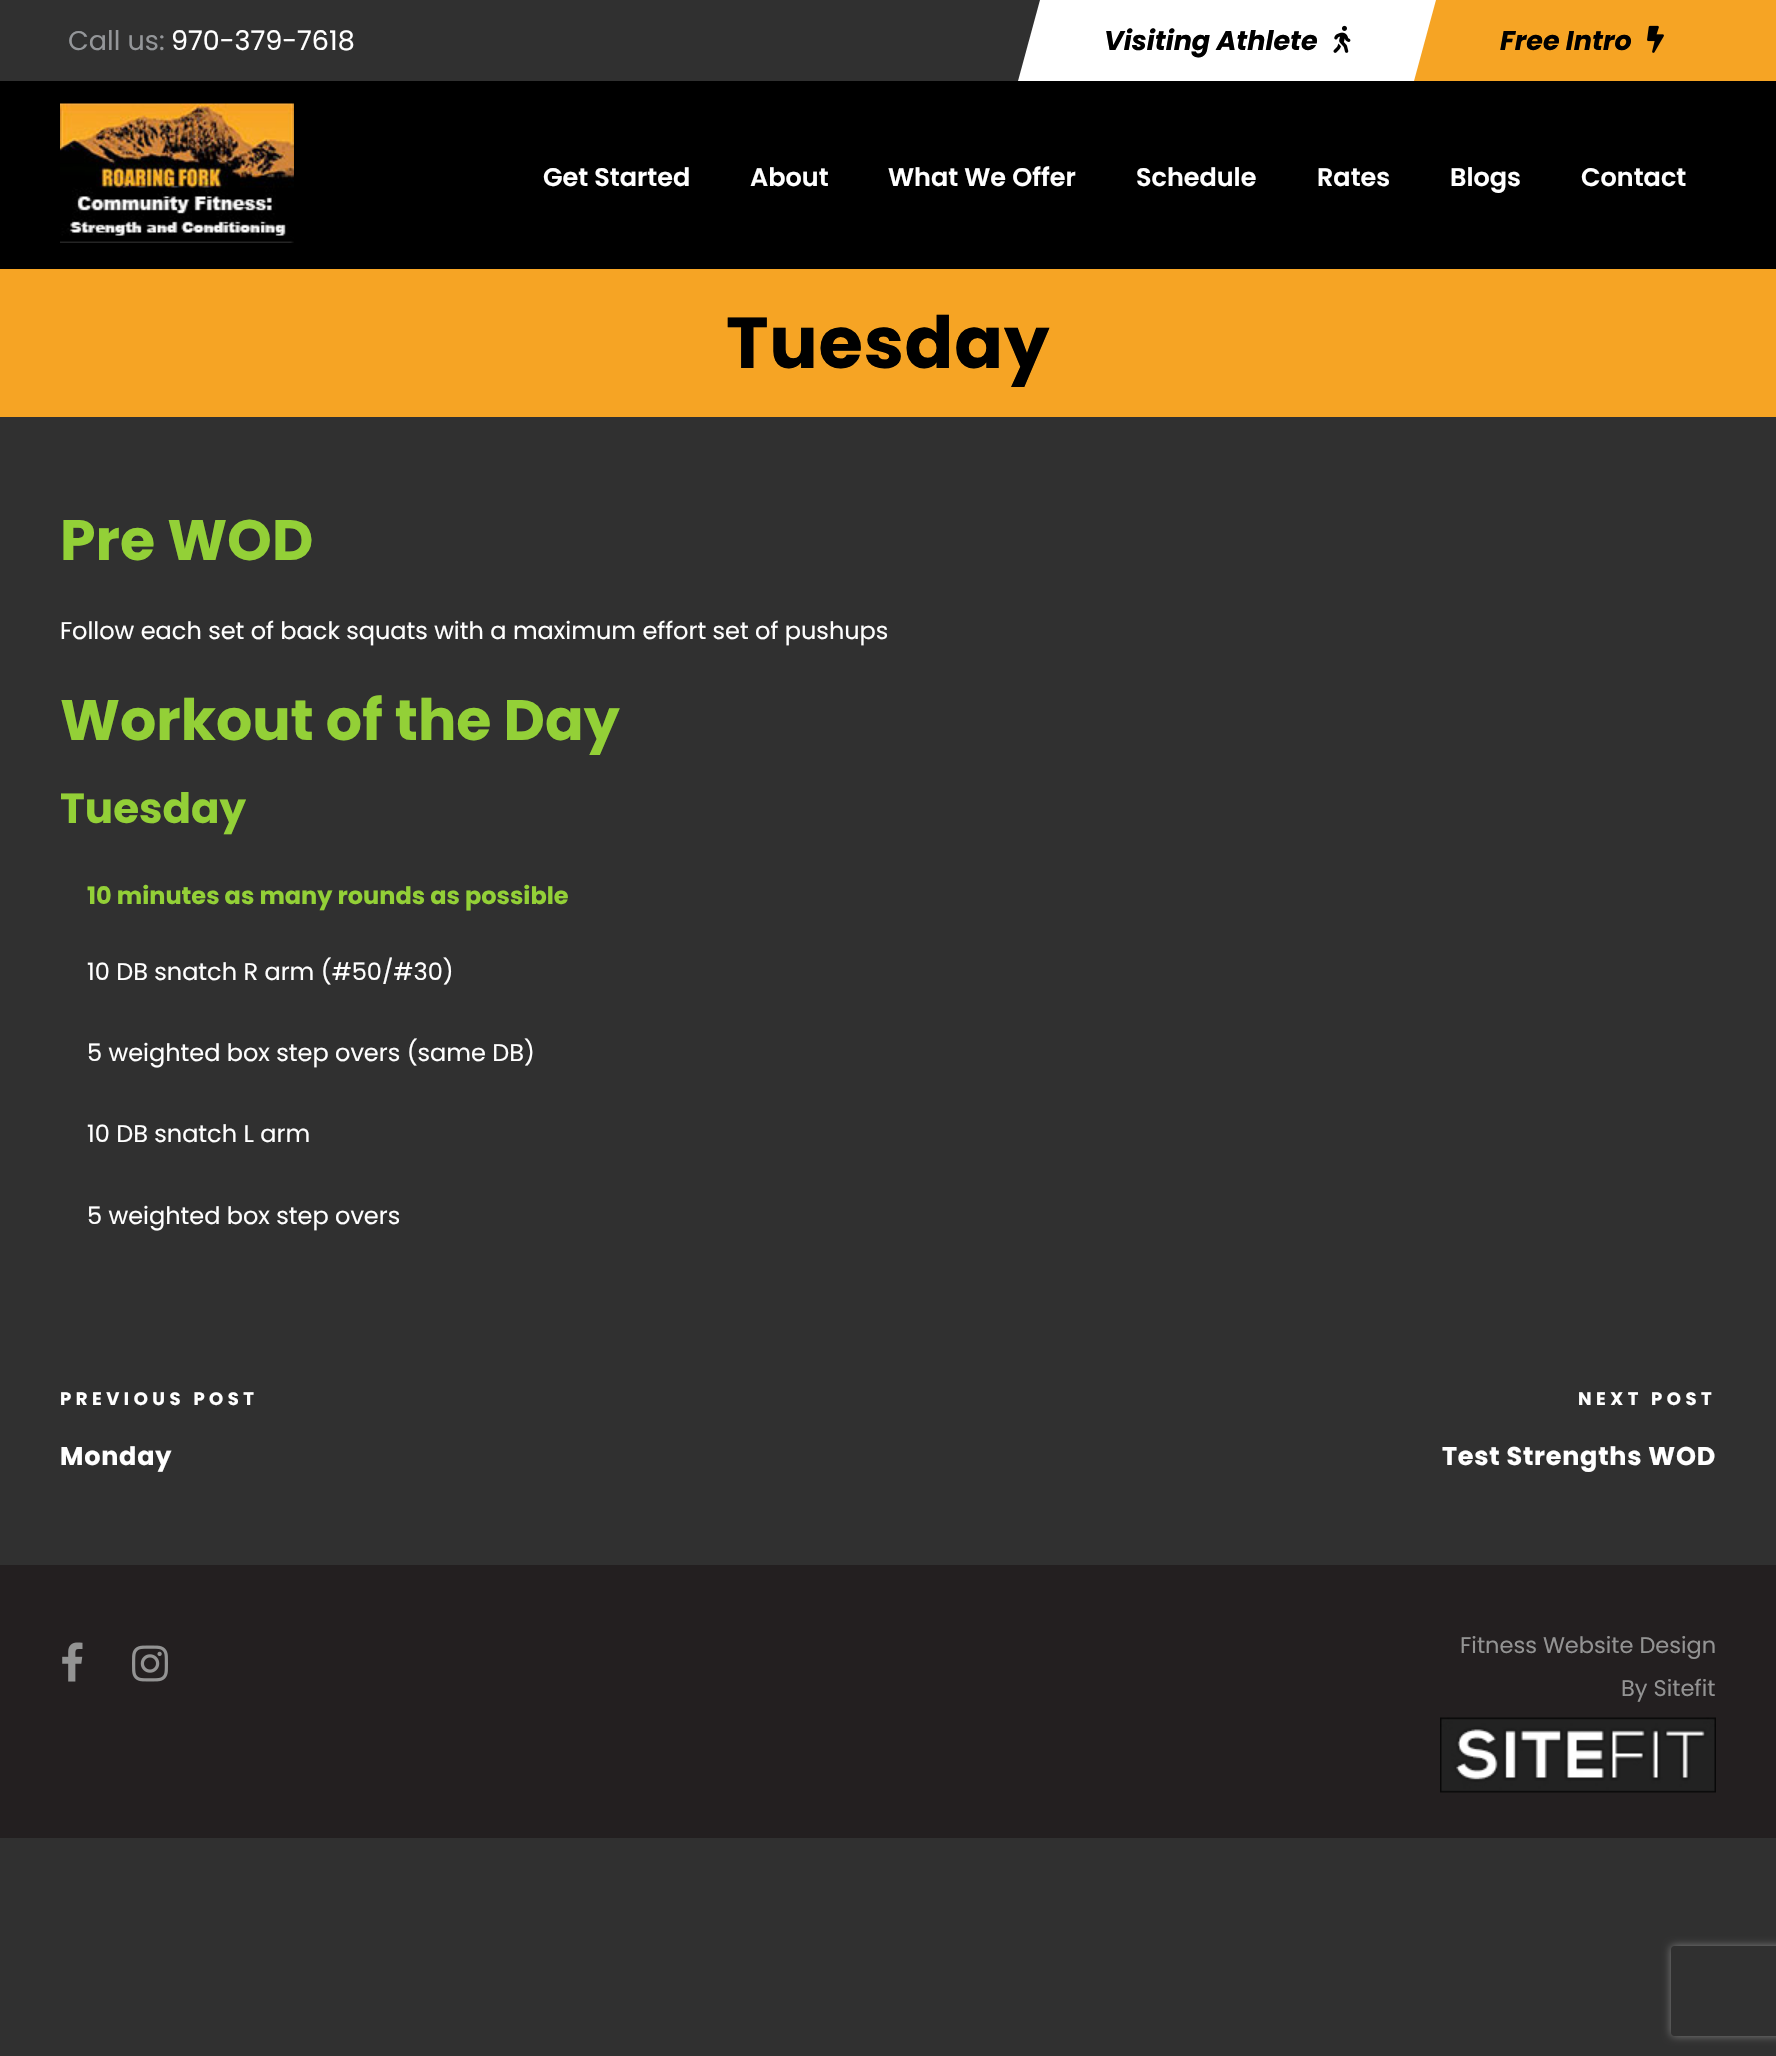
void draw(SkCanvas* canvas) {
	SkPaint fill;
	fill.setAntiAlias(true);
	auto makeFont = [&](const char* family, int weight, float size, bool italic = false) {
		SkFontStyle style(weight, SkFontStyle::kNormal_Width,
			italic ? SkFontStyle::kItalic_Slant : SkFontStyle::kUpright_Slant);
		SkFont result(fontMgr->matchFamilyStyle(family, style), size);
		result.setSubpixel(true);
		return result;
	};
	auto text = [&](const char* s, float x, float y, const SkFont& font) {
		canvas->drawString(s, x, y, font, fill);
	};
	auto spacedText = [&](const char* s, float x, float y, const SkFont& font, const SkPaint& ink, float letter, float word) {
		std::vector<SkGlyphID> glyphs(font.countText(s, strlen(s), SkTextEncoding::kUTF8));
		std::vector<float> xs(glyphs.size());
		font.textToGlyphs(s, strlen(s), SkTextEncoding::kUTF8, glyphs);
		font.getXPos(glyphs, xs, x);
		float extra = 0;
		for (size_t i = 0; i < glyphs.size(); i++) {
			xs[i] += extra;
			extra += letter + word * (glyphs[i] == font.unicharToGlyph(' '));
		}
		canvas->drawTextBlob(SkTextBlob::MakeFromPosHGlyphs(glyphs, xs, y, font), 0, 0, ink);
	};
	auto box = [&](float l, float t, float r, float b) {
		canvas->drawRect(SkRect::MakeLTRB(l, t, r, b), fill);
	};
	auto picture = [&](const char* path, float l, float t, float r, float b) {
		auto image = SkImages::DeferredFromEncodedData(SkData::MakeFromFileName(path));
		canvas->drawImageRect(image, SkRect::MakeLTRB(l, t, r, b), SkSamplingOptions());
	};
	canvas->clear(0xFF303030);
	fill.setColor(0xFFFFFFFF);
	canvas->drawPath(SkPathBuilder().moveTo(1040, 0).lineTo(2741, 0).lineTo(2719, 81).lineTo(1018, 81).close().detach(), fill);
	picture("image0.png", 1333, 25, 1351, 53);
	{
		const SkColor colors[] = {0xFFCCCCCC, 0xFFF7F7F7, 0xFFF6A424, 0xFFF6A424};
		const float stops[] = {0, 0.5f, 0.5f, 1};
		const SkPoint ends[] = {{-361, 41}, {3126, 41}};
		fill.setShader(SkGradientShader::MakeLinear(ends, colors, stops, 4, SkTileMode::kClamp));
		fill.setAlpha(255);
	}
	canvas->drawPath(SkPathBuilder().moveTo(1436, 0).lineTo(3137, 0).lineTo(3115, 81).lineTo(1414, 81).close().detach(), fill);
	picture("image1.png", 1647, 25, 1664, 53);
	fill.setShader(nullptr);
	fill.setColor(0xFF000000);
	box(0, 81, 1776, 269);
	picture("image2.png", 60, 103, 294, 243);
	fill.setColor(0xFFF6A424);
	box(0, 269, 1776, 417);
	fill.setColor(0xFF231F20);
	box(0, 1565, 1776, 1838);
	picture("image3.png", 62, 1642, 83, 1682);
	picture("image4.png", 132, 1645, 168, 1682);
	picture("image5.png", 1440, 1717, 1716, 1793);
	canvas->save();
	canvas->clipPath(SkPathBuilder(SkPathFillType::kEvenOdd).moveTo(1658, 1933).lineTo(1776, 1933).lineTo(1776, 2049).lineTo(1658, 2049).close().moveTo(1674, 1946).lineTo(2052, 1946).cubicTo(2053.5f, 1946, 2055, 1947.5f, 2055, 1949).lineTo(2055, 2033).cubicTo(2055, 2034.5f, 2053.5f, 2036, 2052, 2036).lineTo(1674, 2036).cubicTo(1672.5f, 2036, 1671, 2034.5f, 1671, 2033).lineTo(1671, 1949).cubicTo(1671, 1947.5f, 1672.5f, 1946, 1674, 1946).close().detach(), true);
	fill.setColor(0xFF808080);
	fill.setMaskFilter(SkMaskFilter::MakeBlur(kNormal_SkBlurStyle, 4));
	canvas->drawRoundRect(SkRect::MakeLTRB(1671, 1946, 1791, 2036), 3, 3, fill);
	fill.setMaskFilter(nullptr);
	canvas->restore();
	auto font1 = makeFont("Poppins", 400, 27);
	fill.setColor(0xFF949699);
	text("Call us:", 68, 50, font1);
	fill.setColor(0xFFFFFFFF);
	text("970-379-7618", 171, 50, font1);
	auto font2 = makeFont("Poppins", 700, 27, true);
	fill.setColor(0xFF000000);
	text("Visiting Athlete", 1104, 50, font2);
	text("Free Intro", 1500, 50, font2);
	auto font3 = makeFont("Poppins", 600, 25.5f);
	fill.setColor(0xFFFFFFFF);
	text("Get Started", 543, 186, font3);
	text("About", 750, 186, font3);
	text("What We Offer", 888, 186, font3);
	text("Schedule", 1136, 186, font3);
	text("Rates", 1317, 186, font3);
	text("Blogs", 1450, 186, font3);
	text("Contact", 1581, 186, font3);
	auto font4 = makeFont("Poppins", 700, 72);
	fill.setColor(0xFF000000);
	spacedText("Tuesday", 726, 368, font4, fill, 0.75f, 0);
	auto font5 = makeFont("Poppins", 700, 57);
	fill.setColor(0xFF93D037);
	text("Pre WOD", 60, 560, font5);
	auto font6 = makeFont("Poppins", 400, 24);
	fill.setColor(0xFFFFFFFF);
	text("Follow each set of back squats with a maximum effort set of pushups", 60, 639, font6);
	fill.setColor(0xFF93D037);
	text("Workout of the Day", 60, 740, font5);
	auto font7 = makeFont("Poppins", 700, 42);
	text("Tuesday", 60, 823, font7);
	auto font8 = makeFont("Poppins", 700, 24);
	text("10 minutes as many rounds as possible", 87, 904, font8);
	fill.setColor(0xFFFFFFFF);
	text("10 DB snatch R arm (#50/#30)", 87, 980, font6);
	text("5 weighted box step overs (same DB)", 87, 1061, font6);
	text("10 DB snatch L arm", 87, 1142, font6);
	text("5 weighted box step overs", 87, 1224, font6);
	auto font9 = makeFont("Poppins", 700, 18);
	spacedText("PREVIOUS POST", 60, 1405, font9, fill, 4.5f, 0);
	auto font10 = makeFont("Poppins", 700, 25.5f);
	spacedText("Monday", 60, 1465, font10, fill, 0.75f, 0);
	spacedText("NEXT POST", 1578, 1405, font9, fill, 4.5f, 0);
	spacedText("Test Strengths WOD", 1442, 1465, font10, fill, 0.75f, 0);
	auto font11 = makeFont("Poppins", 400, 22.5f);
	fill.setColor(0xFF939393);
	text("Fitness Website Design", 1460, 1653, font11);
	text("By Sitefit", 1621, 1696, font11);
}
